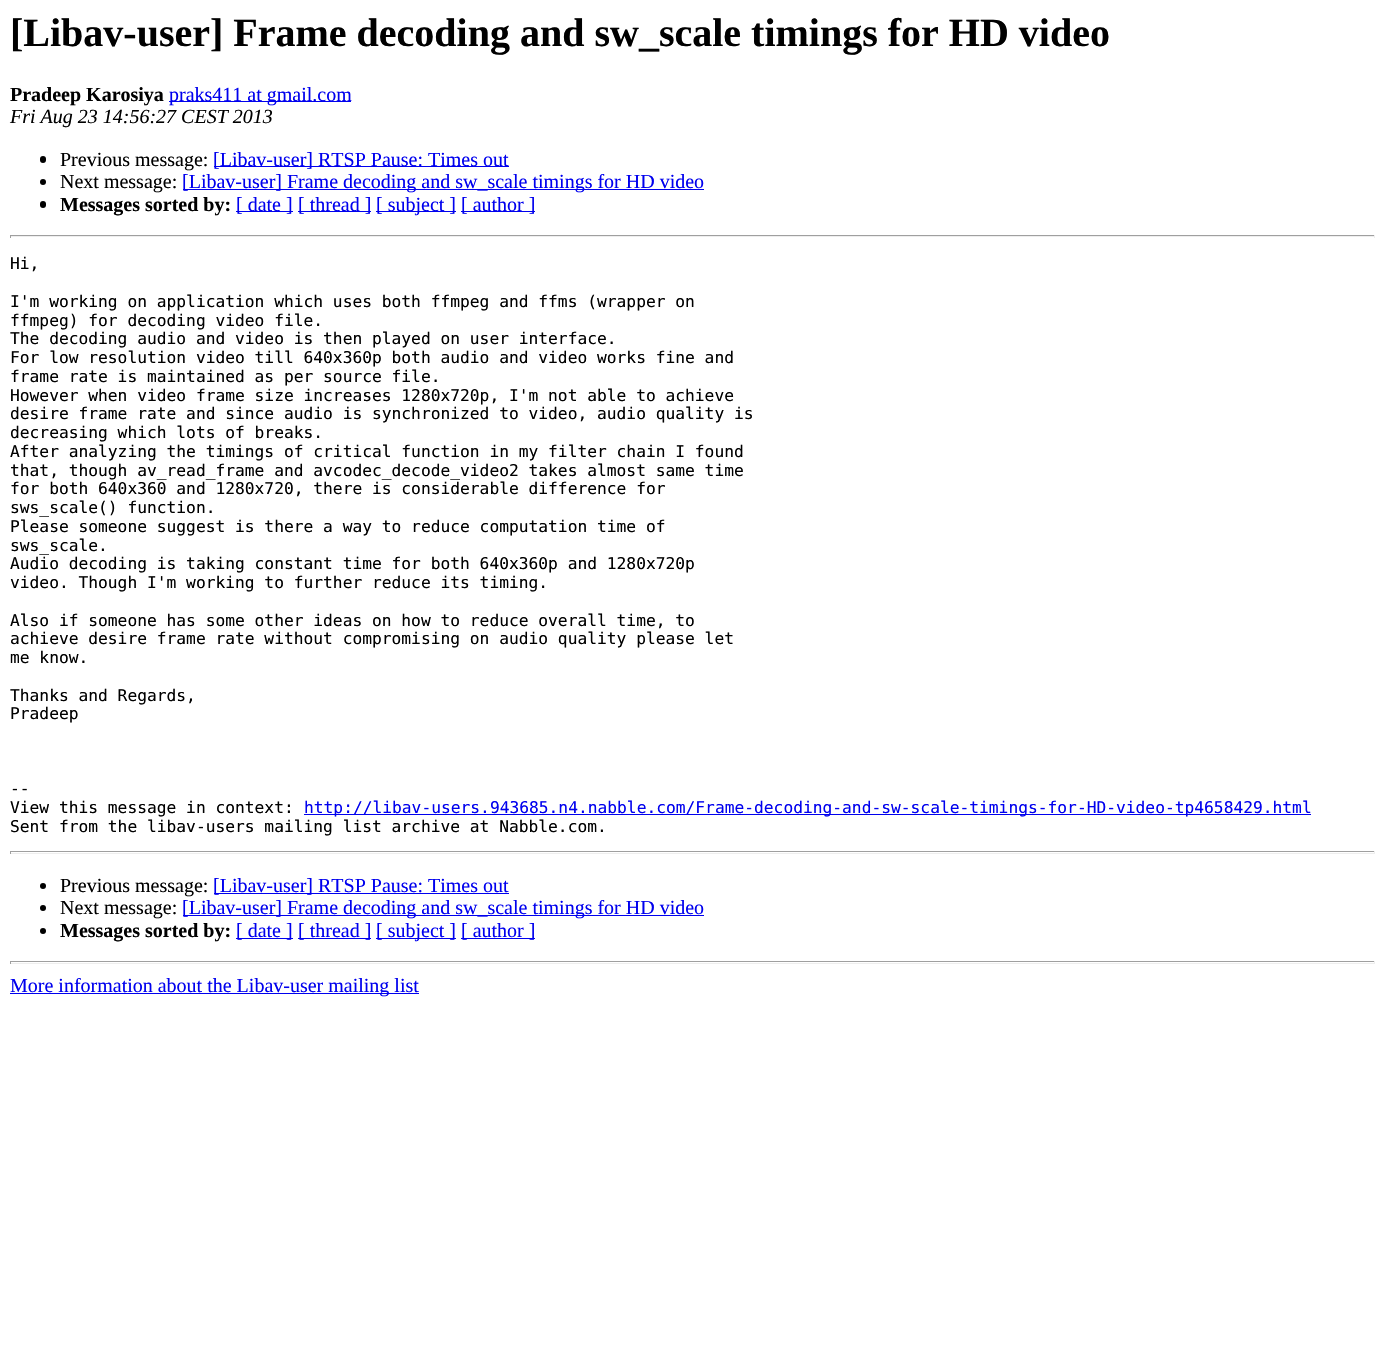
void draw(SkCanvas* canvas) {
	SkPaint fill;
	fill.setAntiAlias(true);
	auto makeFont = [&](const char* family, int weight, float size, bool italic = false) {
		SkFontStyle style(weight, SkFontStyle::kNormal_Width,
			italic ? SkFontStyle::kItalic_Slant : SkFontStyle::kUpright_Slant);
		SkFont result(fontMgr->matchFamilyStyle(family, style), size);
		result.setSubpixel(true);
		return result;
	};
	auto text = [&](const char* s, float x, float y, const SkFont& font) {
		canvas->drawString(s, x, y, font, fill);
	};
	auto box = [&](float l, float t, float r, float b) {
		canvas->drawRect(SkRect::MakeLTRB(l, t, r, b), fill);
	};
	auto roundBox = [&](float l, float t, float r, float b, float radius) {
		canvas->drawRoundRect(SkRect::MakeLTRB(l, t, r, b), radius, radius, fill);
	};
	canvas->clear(0xFFFFFFFF);
	fill.setColor(0xFF0000EE);
	box(169, 101, 351, 102);
	fill.setColor(0xFF000000);
	roundBox(40, 156, 46, 163, 3);
	fill.setColor(0xFF0000EE);
	box(214, 166, 509, 167);
	fill.setColor(0xFF000000);
	canvas->drawCircle(43, 182, 3, fill);
	fill.setColor(0xFF0000EE);
	box(183, 189, 704, 190);
	fill.setColor(0xFF000000);
	roundBox(40, 201, 46, 208, 3);
	fill.setColor(0xFF0000EE);
	box(236, 211, 293, 212);
	box(298, 211, 371, 212);
	box(376, 211, 456, 212);
	box(461, 211, 535, 212);
	fill.setColor(0xFF9F9F9F);
	box(10, 235, 1375, 236);
	fill.setColor(0xFFEEEEEE);
	box(1374, 235, 1375, 238);
	box(10, 236, 1375, 237);
	fill.setColor(0xFF9F9F9F);
	box(10, 235, 11, 238);
	fill.setColor(0xFF0000EE);
	box(304, 814, 1311, 815);
	fill.setColor(0xFF9F9F9F);
	box(10, 851, 1375, 852);
	fill.setColor(0xFFEEEEEE);
	box(1374, 851, 1375, 854);
	box(10, 853, 1375, 854);
	fill.setColor(0xFF9F9F9F);
	box(10, 851, 11, 854);
	fill.setColor(0xFF000000);
	canvas->drawCircle(43, 886, 3, fill);
	fill.setColor(0xFF0000EE);
	box(214, 893, 509, 894);
	fill.setColor(0xFF000000);
	canvas->drawCircle(43, 908, 3, fill);
	fill.setColor(0xFF0000EE);
	box(183, 915, 704, 916);
	fill.setColor(0xFF000000);
	canvas->drawCircle(43, 931, 3, fill);
	fill.setColor(0xFF0000EE);
	box(236, 938, 293, 939);
	box(298, 938, 371, 939);
	box(376, 938, 456, 939);
	box(461, 938, 535, 939);
	fill.setColor(0xFF9F9F9F);
	box(10, 961, 1375, 962);
	fill.setColor(0xFFEEEEEE);
	box(1374, 961, 1375, 964);
	box(10, 963, 1375, 964);
	fill.setColor(0xFF9F9F9F);
	box(10, 961, 11, 964);
	fill.setColor(0xFF0000EE);
	box(10, 993, 419, 994);
	auto font1 = makeFont("Liberation Serif", 700, 40);
	fill.setColor(0xFF000000);
	text("[Libav-user] Frame decoding and sw_scale timings for HD video", 10, 46, font1);
	auto font2 = makeFont("Liberation Serif", 700, 20);
	text("Pradeep Karosiya", 10, 101, font2);
	auto font3 = makeFont("Liberation Serif", 400, 20);
	fill.setColor(0xFF0000EE);
	text("praks411 at gmail.com", 169, 101, font3);
	auto font4 = makeFont("Liberation Serif", 400, 20, true);
	fill.setColor(0xFF000000);
	text("Fri Aug 23 14:56:27 CEST 2013", 10, 123, font4);
	text("Previous message:", 60, 166, font3);
	fill.setColor(0xFF0000EE);
	text("[Libav-user] RTSP Pause: Times out", 213, 166, font3);
	fill.setColor(0xFF000000);
	text("Next message:", 60, 188, font3);
	fill.setColor(0xFF0000EE);
	text("[Libav-user] Frame decoding and sw_scale timings for HD video", 182, 188, font3);
	fill.setColor(0xFF000000);
	text("Messages sorted by:", 60, 211, font2);
	fill.setColor(0xFF0000EE);
	text("[ date ]", 236, 211, font3);
	text("[ thread ]", 298, 211, font3);
	text("[ subject ]", 376, 211, font3);
	text("[ author ]", 461, 211, font3);
	auto font5 = makeFont("DejaVu Sans Mono", 400, 16.25f);
	fill.setColor(0xFF000000);
	text("Hi,", 10, 269, font5);
	text("I'm working on application which uses both ffmpeg and ffms (wrapper on", 10, 307, font5);
	text("ffmpeg) for decoding video file.", 10, 326, font5);
	text("The decoding audio and video is then played on user interface.", 10, 344, font5);
	text("For low resolution video till 640x360p both audio and video works fine and", 10, 363, font5);
	text("frame rate is maintained as per source file.", 10, 382, font5);
	text("However when video frame size increases 1280x720p, I'm not able to achieve", 10, 401, font5);
	text("desire frame rate and since audio is synchronized to video, audio quality is", 10, 419, font5);
	text("decreasing which lots of breaks.", 10, 438, font5);
	text("After analyzing the timings of critical function in my filter chain I found", 10, 457, font5);
	text("that, though av_read_frame and avcodec_decode_video2 takes almost same time", 10, 476, font5);
	text("for both 640x360 and 1280x720, there is considerable difference for", 10, 494, font5);
	text("sws_scale() function.", 10, 513, font5);
	text("Please someone suggest is there a way to reduce computation time of", 10, 532, font5);
	text("sws_scale.", 10, 551, font5);
	text("Audio decoding is taking constant time for both 640x360p and 1280x720p", 10, 569, font5);
	text("video. Though I'm working to further reduce its timing.", 10, 588, font5);
	text("Also if someone has some other ideas on how to reduce overall time, to", 10, 626, font5);
	text("achieve desire frame rate without compromising on audio quality please let", 10, 644, font5);
	text("me know.", 10, 663, font5);
	text("Thanks and Regards,", 10, 701, font5);
	text("Pradeep", 10, 719, font5);
	text("--", 10, 794, font5);
	text("View this message in context:", 10, 813, font5);
	fill.setColor(0xFF0000EE);
	text("http://libav-users.943685.n4.nabble.com/Frame-decoding-and-sw-scale-timings-for-HD-video-tp4658429.html", 304, 813, font5);
	fill.setColor(0xFF000000);
	text("Sent from the libav-users mailing list archive at Nabble.com.", 10, 832, font5);
	text("Previous message:", 60, 892, font3);
	fill.setColor(0xFF0000EE);
	text("[Libav-user] RTSP Pause: Times out", 213, 892, font3);
	fill.setColor(0xFF000000);
	text("Next message:", 60, 914, font3);
	fill.setColor(0xFF0000EE);
	text("[Libav-user] Frame decoding and sw_scale timings for HD video", 182, 914, font3);
	fill.setColor(0xFF000000);
	text("Messages sorted by:", 60, 937, font2);
	fill.setColor(0xFF0000EE);
	text("[ date ]", 236, 937, font3);
	text("[ thread ]", 298, 937, font3);
	text("[ subject ]", 376, 937, font3);
	text("[ author ]", 461, 937, font3);
	text("More information about the Libav-user mailing list", 10, 992, font3);
}
